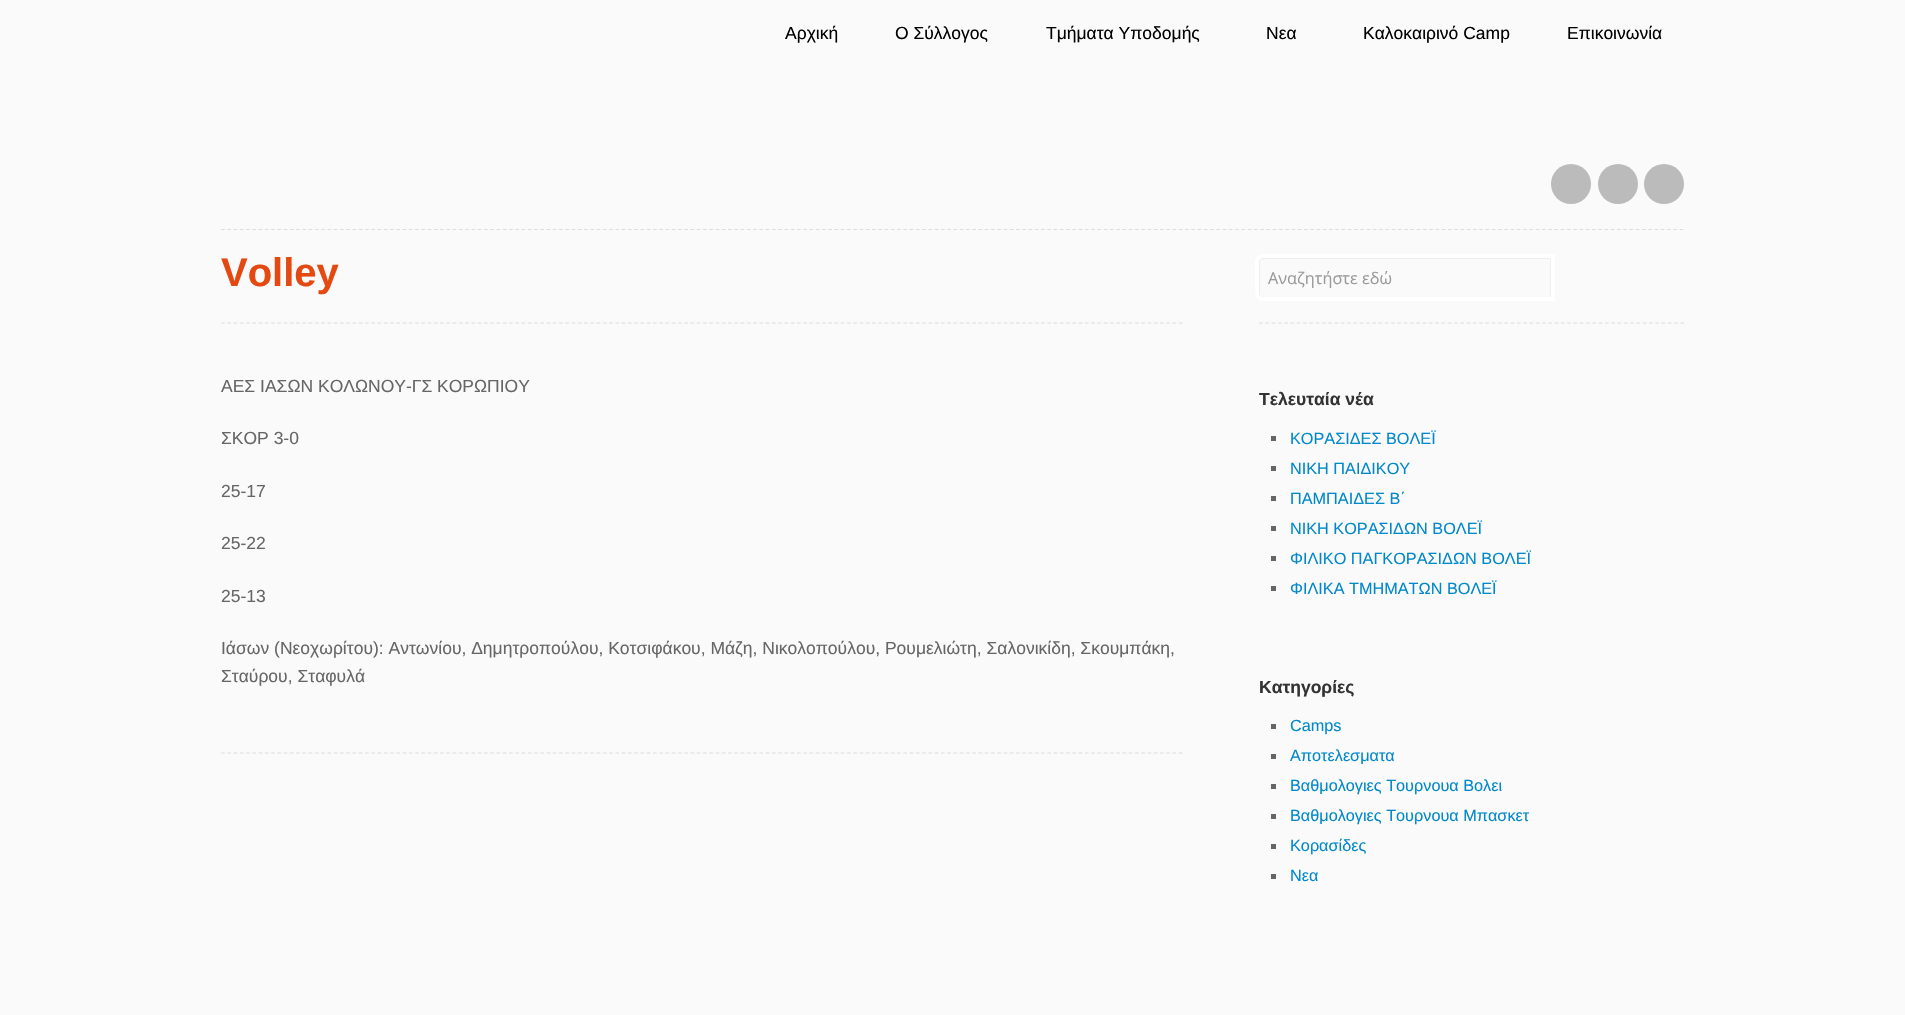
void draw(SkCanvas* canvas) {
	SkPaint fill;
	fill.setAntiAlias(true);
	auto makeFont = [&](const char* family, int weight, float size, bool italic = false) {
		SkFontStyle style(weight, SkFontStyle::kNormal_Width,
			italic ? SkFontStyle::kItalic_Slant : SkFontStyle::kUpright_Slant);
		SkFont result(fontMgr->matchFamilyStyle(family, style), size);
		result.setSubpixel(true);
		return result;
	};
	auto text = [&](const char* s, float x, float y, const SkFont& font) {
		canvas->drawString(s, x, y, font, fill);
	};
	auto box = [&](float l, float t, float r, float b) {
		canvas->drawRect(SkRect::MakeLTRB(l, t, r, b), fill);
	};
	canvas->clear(0xFFFAFAFA);
	fill.setStyle(SkPaint::kStroke_Style);
	fill.setStrokeWidth(1.2f);
	fill.setColor(0xFFDDDDDD);
	fill.setPathEffect(SkDashPathEffect::Make({{3.75f, 2.51f}}, 0));
	canvas->drawPath(SkPathBuilder().moveTo(221, 229.5f).lineTo(1684, 229.5f).detach(), fill);
	fill.setPathEffect(nullptr);
	fill.setStyle(SkPaint::kFill_Style);
	fill.setColor(0xFFBBBBBB);
	canvas->drawCircle(1571, 184, 20, fill);
	canvas->drawCircle(1618, 184, 20, fill);
	canvas->drawCircle(1664, 184, 20, fill);
	fill.setStyle(SkPaint::kStroke_Style);
	fill.setColor(0xFFDDDDDD);
	fill.setPathEffect(SkDashPathEffect::Make({{3.75f, 2.51f}}, 0));
	canvas->drawPath(SkPathBuilder().moveTo(221, 323).lineTo(1184, 323).detach(), fill);
	fill.setPathEffect(nullptr);
	fill.setPathEffect(SkDashPathEffect::Make({{3.75f, 2.51f}}, 0));
	canvas->drawPath(SkPathBuilder().moveTo(221, 753).lineTo(1184, 753).detach(), fill);
	fill.setPathEffect(nullptr);
	fill.setPathEffect(SkDashPathEffect::Make({{3.75f, 2.54f}}, 0));
	canvas->drawPath(SkPathBuilder().moveTo(1259, 323).lineTo(1684, 323).detach(), fill);
	fill.setPathEffect(nullptr);
	fill.setStrokeWidth(1);
	fill.setColor(0xFFEEEEEE);
	canvas->drawPath(SkPathBuilder().moveTo(1263, 258.5f).lineTo(1550.5f, 258.5f).lineTo(1550.5f, 297.5f).lineTo(1263, 297.5f).cubicTo(1261, 297.5f, 1259.5f, 296, 1259.5f, 294).lineTo(1259.5f, 262).cubicTo(1259.5f, 260, 1261, 258.5f, 1263, 258.5f).close().detach(), fill);
	fill.setStrokeWidth(4);
	fill.setColor(0xFFFFFFFF);
	canvas->drawPath(SkPathBuilder().moveTo(1263, 256).lineTo(1553, 256).lineTo(1553, 299).lineTo(1263, 299).cubicTo(1259.5f, 299, 1257, 296.5f, 1257, 293).lineTo(1257, 262).cubicTo(1257, 258.5f, 1259.5f, 256, 1263, 256).close().detach(), fill);
	fill.setStyle(SkPaint::kFill_Style);
	fill.setColor(0xFF666666);
	box(1271, 436, 1276, 441);
	box(1271, 466, 1276, 471);
	box(1271, 496, 1276, 501);
	box(1271, 526, 1276, 531);
	box(1271, 556, 1276, 561);
	box(1271, 586, 1276, 591);
	box(1271, 724, 1276, 729);
	box(1271, 754, 1276, 759);
	box(1271, 784, 1276, 789);
	box(1271, 814, 1276, 819);
	box(1271, 844, 1276, 849);
	box(1271, 874, 1276, 879);
	auto font1 = makeFont("Liberation Sans", 400, 17.5f);
	fill.setColor(0xFF000000);
	text("Αρχική", 785, 39, font1);
	text("O Σύλλογος", 895, 39, font1);
	text("Τμήματα Υποδομής", 1046, 39, font1);
	text("Νεα", 1266, 39, font1);
	text("Καλοκαιρινό Camp", 1363, 39, font1);
	text("Επικοινωνία", 1567, 39, font1);
	auto font2 = makeFont("Liberation Sans", 700, 40);
	fill.setColor(0xFFE54912);
	text("Volley", 221, 286, font2);
	fill.setColor(0xFF666666);
	text("ΑΕΣ ΙΑΣΩΝ ΚΟΛΩΝΟΥ-ΓΣ ΚΟΡΩΠΙΟΥ", 221, 392, font1);
	text("ΣΚΟΡ 3-0", 221, 444, font1);
	text("25-17", 221, 497, font1);
	text("25-22", 221, 549, font1);
	text("25-13", 221, 602, font1);
	text("Ιάσων (Νεοχωρίτου): Αντωνίου, Δημητροπούλου, Κοτσιφάκου, Μάζη, Νικολοπούλου, Ρουμελιώτη, Σαλονικίδη, Σκουμπάκη,", 221, 654, font1);
	text("Σταύρου, Σταφυλά", 221, 682, font1);
	auto font3 = makeFont("Open Sans", 400, 16.25f);
	fill.setColor(0xFF999999);
	text("Αναζητήστε εδώ", 1268, 284, font3);
	auto font4 = makeFont("Liberation Sans", 700, 17.5f);
	fill.setColor(0xFF333333);
	text("Τελευταία νέα", 1259, 405, font4);
	auto font5 = makeFont("Liberation Sans", 400, 16.25f);
	fill.setColor(0xFF0088CC);
	text("ΚΟΡΑΣΙΔΕΣ ΒΟΛΕΪ", 1290, 444, font5);
	text("ΝΙΚΗ ΠΑΙΔΙΚΟΥ", 1290, 474, font5);
	text("ΠΑΜΠΑΙΔΕΣ Β΄", 1290, 504, font5);
	text("ΝΙΚΗ ΚΟΡΑΣΙΔΩΝ ΒΟΛΕΪ", 1290, 534, font5);
	text("ΦΙΛΙΚΟ ΠΑΓΚΟΡΑΣΙΔΩΝ ΒΟΛΕΪ", 1290, 564, font5);
	text("ΦΙΛΙΚΑ ΤΜΗΜΑΤΩΝ ΒΟΛΕΪ", 1290, 594, font5);
	fill.setColor(0xFF333333);
	text("Κατηγορίες", 1259, 693, font4);
	fill.setColor(0xFF0088CC);
	text("Camps", 1290, 731, font5);
	text("Αποτελεσματα", 1290, 761, font5);
	text("Βαθμολογιες Τουρνουα Βολει", 1290, 791, font5);
	text("Βαθμολογιες Τουρνουα Μπασκετ", 1290, 821, font5);
	text("Κορασίδες", 1290, 851, font5);
	text("Νεα", 1290, 881, font5);
}
